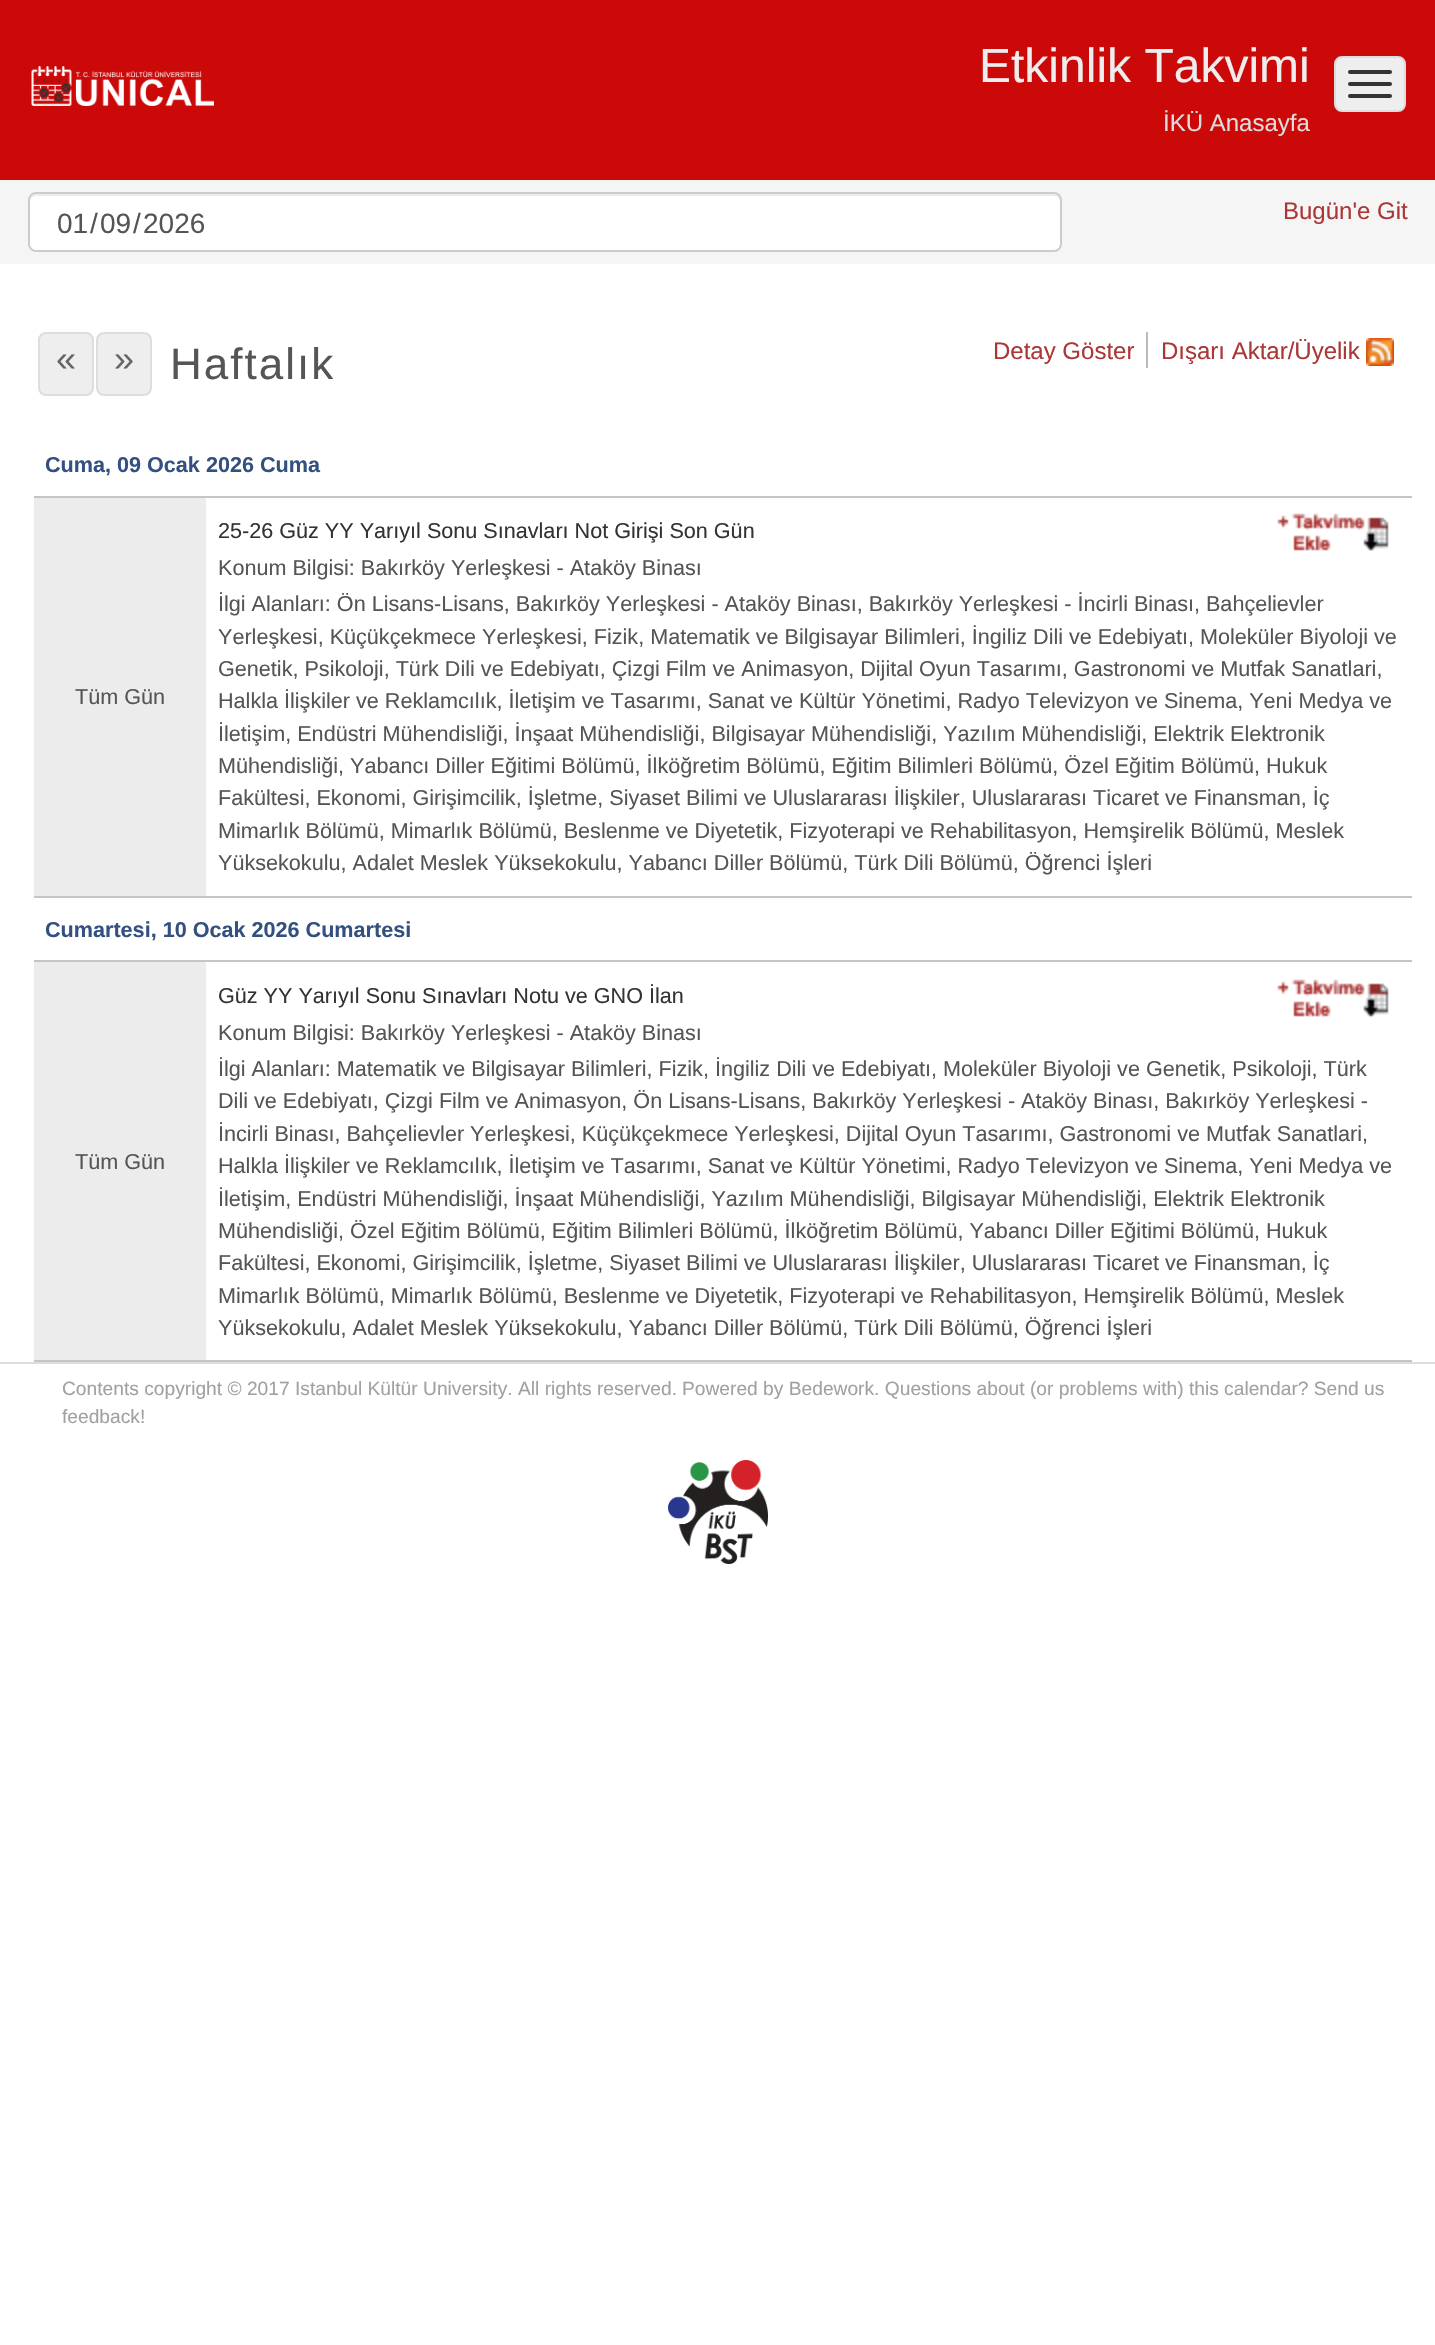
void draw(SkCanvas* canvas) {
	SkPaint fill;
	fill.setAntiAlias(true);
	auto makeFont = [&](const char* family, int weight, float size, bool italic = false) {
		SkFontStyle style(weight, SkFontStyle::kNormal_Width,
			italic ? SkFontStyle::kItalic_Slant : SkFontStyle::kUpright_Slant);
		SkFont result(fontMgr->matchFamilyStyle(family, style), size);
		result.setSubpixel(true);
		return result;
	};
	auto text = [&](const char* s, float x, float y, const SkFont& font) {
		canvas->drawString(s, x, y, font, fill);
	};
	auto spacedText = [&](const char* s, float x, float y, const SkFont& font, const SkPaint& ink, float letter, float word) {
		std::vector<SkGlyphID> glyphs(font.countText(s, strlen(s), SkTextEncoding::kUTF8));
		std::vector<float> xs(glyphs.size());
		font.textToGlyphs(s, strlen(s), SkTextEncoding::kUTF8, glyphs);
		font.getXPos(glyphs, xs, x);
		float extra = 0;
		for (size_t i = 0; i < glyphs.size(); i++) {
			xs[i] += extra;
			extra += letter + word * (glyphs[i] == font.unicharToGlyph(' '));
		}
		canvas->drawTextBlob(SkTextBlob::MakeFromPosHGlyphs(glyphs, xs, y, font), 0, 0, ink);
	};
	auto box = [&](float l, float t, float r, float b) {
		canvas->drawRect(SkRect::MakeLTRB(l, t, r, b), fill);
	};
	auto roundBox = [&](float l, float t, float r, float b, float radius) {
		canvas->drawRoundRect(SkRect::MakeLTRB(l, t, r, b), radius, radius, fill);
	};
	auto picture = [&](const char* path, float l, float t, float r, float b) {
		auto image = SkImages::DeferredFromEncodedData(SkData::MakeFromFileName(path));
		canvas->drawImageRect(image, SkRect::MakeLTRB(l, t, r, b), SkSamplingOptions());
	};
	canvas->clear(0xFFFFFFFF);
	fill.setColor(0xFFCC0909);
	box(0, 0, 1435, 180);
	picture("image0.png", 31, 66, 214, 106);
	fill.setColor(0xFFEEEEEE);
	canvas->drawRoundRect(SkRect::MakeLTRB(1335, 57, 1405, 111), 7, 7, fill);
	fill.setStyle(SkPaint::kStroke_Style);
	fill.setStrokeWidth(2);
	fill.setColor(0xFFDDDDDD);
	canvas->drawRoundRect(SkRect::MakeLTRB(1335, 57, 1405, 111), 7, 7, fill);
	fill.setStyle(SkPaint::kFill_Style);
	fill.setColor(0xFF333333);
	roundBox(1348, 70, 1392, 74, 2);
	roundBox(1348, 82, 1392, 86, 2);
	roundBox(1348, 94, 1392, 98, 2);
	fill.setColor(0xFFF5F5F5);
	box(0, 180, 1435, 264);
	fill.setColor(0xFFFFFFFF);
	roundBox(28, 192, 1062, 252, 8);
	fill.setColor(0xFFECECEC);
	canvas->drawPath(SkPathBuilder().moveTo(36, 196).lineTo(1054, 196).cubicTo(1057, 196, 1060, 199, 1060, 202).lineTo(1060, 200).cubicTo(1060, 197, 1057, 194, 1054, 194).lineTo(36, 194).cubicTo(33, 194, 30, 197, 30, 200).lineTo(30, 202).cubicTo(30, 199, 33, 196, 36, 196).close().detach(), fill);
	fill.setStyle(SkPaint::kStroke_Style);
	fill.setColor(0xFFCCCCCC);
	canvas->drawRoundRect(SkRect::MakeLTRB(29, 193, 1061, 251), 7, 7, fill);
	fill.setStyle(SkPaint::kFill_Style);
	fill.setColor(0xFFEEEEEE);
	canvas->drawRoundRect(SkRect::MakeLTRB(39, 333, 93, 395), 7, 7, fill);
	fill.setStyle(SkPaint::kStroke_Style);
	fill.setColor(0xFFDDDDDD);
	canvas->drawRoundRect(SkRect::MakeLTRB(39, 333, 93, 395), 7, 7, fill);
	fill.setStyle(SkPaint::kFill_Style);
	fill.setColor(0xFFEEEEEE);
	canvas->drawRoundRect(SkRect::MakeLTRB(97, 333, 151, 395), 7, 7, fill);
	fill.setStyle(SkPaint::kStroke_Style);
	fill.setColor(0xFFDDDDDD);
	canvas->drawRoundRect(SkRect::MakeLTRB(97, 333, 151, 395), 7, 7, fill);
	fill.setStyle(SkPaint::kFill_Style);
	fill.setColor(0xFFBBBBBB);
	box(1146, 332, 1148, 368);
	picture("image1.png", 1366, 338, 1394, 366);
	fill.setColor(0xFFC5C5C5);
	box(34, 496, 1412, 498);
	fill.setColor(0xFFECECEC);
	box(34, 498, 206, 896);
	fill.setColor(0xFFC5C5C5);
	box(34, 896, 1412, 898);
	picture("image2.png", 1277, 513, 1389, 551);
	box(34, 960, 1412, 962);
	fill.setColor(0xFFECECEC);
	box(34, 962, 206, 1360);
	fill.setColor(0xFFC5C5C5);
	box(34, 1360, 1412, 1362);
	picture("image2.png", 1277, 979, 1389, 1017);
	fill.setColor(0xFFDDDDDD);
	box(0, 1362, 1435, 1364);
	picture("image3.png", 668, 1460, 768, 1564);
	auto font1 = makeFont("Liberation Sans", 400, 48);
	fill.setColor(0xFFEEEEEE);
	text("Etkinlik Takvimi", 979, 82, font1);
	auto font2 = makeFont("Liberation Sans", 400, 24);
	fill.setColor(0xFFDDDDDD);
	text("İKÜ Anasayfa", 1163, 131, font2);
	auto font3 = makeFont("Liberation Sans", 400, 28);
	fill.setColor(0xFF555555);
	text("01", 57, 233, font3);
	text("/", 90, 233, font3);
	text("09", 100, 233, font3);
	text("/", 133, 233, font3);
	text("2026", 143, 233, font3);
	fill.setColor(0xFFAB3737);
	text("Bugün'e Git", 1283, 219, font2);
	auto font4 = makeFont("Liberation Sans", 400, 36);
	fill.setColor(0xFF666666);
	text("«", 56, 371, font4);
	text("»", 114, 371, font4);
	auto font5 = makeFont("Liberation Sans", 400, 44);
	fill.setColor(0xFF555555);
	spacedText("Haftalık", 170, 379, font5, fill, 2, 0);
	fill.setColor(0xFFAB3737);
	text("Detay Göster", 993, 359, font2);
	text("Dışarı Aktar/Üyelik", 1161, 359, font2);
	auto font6 = makeFont("Liberation Sans", 700, 21.6f);
	fill.setColor(0xFF335080);
	text("Cuma, 09 Ocak 2026 Cuma", 45, 472, font6);
	auto font7 = makeFont("Liberation Sans", 400, 21.6f);
	fill.setColor(0xFF555555);
	text("Tüm Gün", 75, 704, font7);
	fill.setColor(0xFF333333);
	text("25-26 Güz YY Yarıyıl Sonu Sınavları Not Girişi Son Gün", 218, 538, font7);
	fill.setColor(0xFF555555);
	text("Konum Bilgisi: Bakırköy Yerleşkesi - Ataköy Binası", 218, 575, font7);
	text("İlgi Alanları: Ön Lisans-Lisans, Bakırköy Yerleşkesi - Ataköy Binası, Bakırköy Yerleşkesi - İncirli Binası, Bahçelievler", 218, 611, font7);
	text("Yerleşkesi, Küçükçekmece Yerleşkesi, Fizik, Matematik ve Bilgisayar Bilimleri, İngiliz Dili ve Edebiyatı, Moleküler Biyoloji ve", 218, 644, font7);
	text("Genetik, Psikoloji, Türk Dili ve Edebiyatı, Çizgi Film ve Animasyon, Dijital Oyun Tasarımı, Gastronomi ve Mutfak Sanatlari,", 218, 676, font7);
	text("Halkla İlişkiler ve Reklamcılık, İletişim ve Tasarımı, Sanat ve Kültür Yönetimi, Radyo Televizyon ve Sinema, Yeni Medya ve", 218, 708, font7);
	text("İletişim, Endüstri Mühendisliği, İnşaat Mühendisliği, Bilgisayar Mühendisliği, Yazılım Mühendisliği, Elektrik Elektronik", 218, 741, font7);
	text("Mühendisliği, Yabancı Diller Eğitimi Bölümü, İlköğretim Bölümü, Eğitim Bilimleri Bölümü, Özel Eğitim Bölümü, Hukuk", 218, 773, font7);
	text("Fakültesi, Ekonomi, Girişimcilik, İşletme, Siyaset Bilimi ve Uluslararası İlişkiler, Uluslararası Ticaret ve Finansman, İç", 218, 805, font7);
	text("Mimarlık Bölümü, Mimarlık Bölümü, Beslenme ve Diyetetik, Fizyoterapi ve Rehabilitasyon, Hemşirelik Bölümü, Meslek", 218, 838, font7);
	text("Yüksekokulu, Adalet Meslek Yüksekokulu, Yabancı Diller Bölümü, Türk Dili Bölümü, Öğrenci İşleri", 218, 870, font7);
	fill.setColor(0xFF335080);
	text("Cumartesi, 10 Ocak 2026 Cumartesi", 45, 937, font6);
	fill.setColor(0xFF555555);
	text("Tüm Gün", 75, 1169, font7);
	fill.setColor(0xFF333333);
	text("Güz YY Yarıyıl Sonu Sınavları Notu ve GNO İlan", 218, 1003, font7);
	fill.setColor(0xFF555555);
	text("Konum Bilgisi: Bakırköy Yerleşkesi - Ataköy Binası", 218, 1040, font7);
	text("İlgi Alanları: Matematik ve Bilgisayar Bilimleri, Fizik, İngiliz Dili ve Edebiyatı, Moleküler Biyoloji ve Genetik, Psikoloji, Türk", 218, 1076, font7);
	text("Dili ve Edebiyatı, Çizgi Film ve Animasyon, Ön Lisans-Lisans, Bakırköy Yerleşkesi - Ataköy Binası, Bakırköy Yerleşkesi -", 218, 1108, font7);
	text("İncirli Binası, Bahçelievler Yerleşkesi, Küçükçekmece Yerleşkesi, Dijital Oyun Tasarımı, Gastronomi ve Mutfak Sanatlari,", 218, 1141, font7);
	text("Halkla İlişkiler ve Reklamcılık, İletişim ve Tasarımı, Sanat ve Kültür Yönetimi, Radyo Televizyon ve Sinema, Yeni Medya ve", 218, 1173, font7);
	text("İletişim, Endüstri Mühendisliği, İnşaat Mühendisliği, Yazılım Mühendisliği, Bilgisayar Mühendisliği, Elektrik Elektronik", 218, 1206, font7);
	text("Mühendisliği, Özel Eğitim Bölümü, Eğitim Bilimleri Bölümü, İlköğretim Bölümü, Yabancı Diller Eğitimi Bölümü, Hukuk", 218, 1238, font7);
	text("Fakültesi, Ekonomi, Girişimcilik, İşletme, Siyaset Bilimi ve Uluslararası İlişkiler, Uluslararası Ticaret ve Finansman, İç", 218, 1270, font7);
	text("Mimarlık Bölümü, Mimarlık Bölümü, Beslenme ve Diyetetik, Fizyoterapi ve Rehabilitasyon, Hemşirelik Bölümü, Meslek", 218, 1303, font7);
	text("Yüksekokulu, Adalet Meslek Yüksekokulu, Yabancı Diller Bölümü, Türk Dili Bölümü, Öğrenci İşleri", 218, 1335, font7);
	auto font8 = makeFont("Liberation Sans", 400, 19.2f);
	fill.setColor(0xFFA1A1A1);
	text("Contents copyright © 2017 Istanbul Kültür University. All rights reserved.", 62, 1395, font8);
	text("Powered by Bedework. Questions about (or problems with) this calendar? Send us", 682, 1395, font8);
	text("feedback!", 62, 1423, font8);
}
